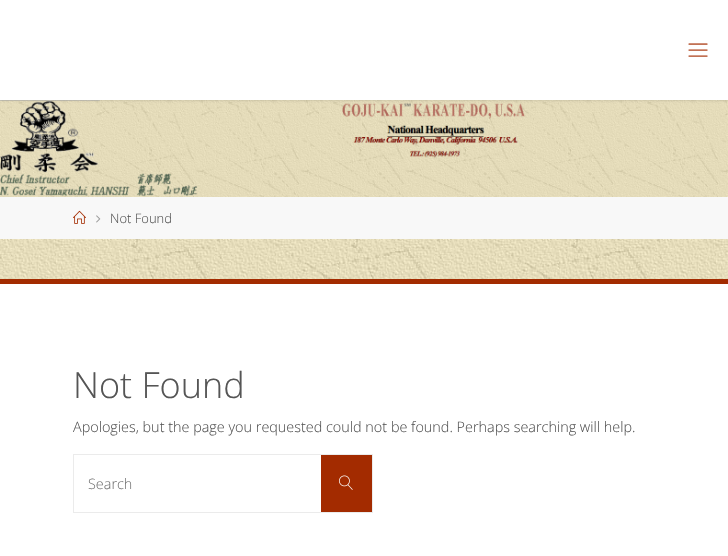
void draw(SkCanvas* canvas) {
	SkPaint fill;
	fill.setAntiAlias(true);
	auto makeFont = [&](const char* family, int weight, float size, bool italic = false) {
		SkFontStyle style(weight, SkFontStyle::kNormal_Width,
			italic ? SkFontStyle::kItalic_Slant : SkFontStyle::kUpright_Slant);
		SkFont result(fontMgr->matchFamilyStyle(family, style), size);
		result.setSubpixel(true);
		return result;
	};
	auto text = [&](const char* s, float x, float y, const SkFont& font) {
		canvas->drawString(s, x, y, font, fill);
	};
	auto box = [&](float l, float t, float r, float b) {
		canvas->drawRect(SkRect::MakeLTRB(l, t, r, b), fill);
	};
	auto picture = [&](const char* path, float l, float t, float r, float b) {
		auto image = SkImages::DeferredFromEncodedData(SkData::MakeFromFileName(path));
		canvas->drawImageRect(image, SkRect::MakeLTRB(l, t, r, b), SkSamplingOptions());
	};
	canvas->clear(0xFFFFFFFF);
	picture("image0.png", 0, 239, 728, 279);
	picture("image2.png", 0, 100, 728, 197);
	fill.setColor(0x33000000);
	fill.setMaskFilter(SkMaskFilter::MakeBlur(kNormal_SkBlurStyle, 1.5f));
	canvas->drawRect(SkRect::MakeLTRB(0, 0, 728, 100), fill);
	fill.setMaskFilter(nullptr);
	fill.setColor(0xFFFFFFFF);
	box(0, 0, 728, 100);
	picture("image1.png", 688, 43, 708, 57);
	fill.setColor(0xFFF8F8F8);
	box(0, 197, 728, 239);
	picture("image3.png", 73, 210, 86, 224);
	picture("image4.png", 96, 215, 101, 223);
	fill.setColor(0xFFA32B00);
	box(0, 279, 728, 284);
	fill.setStyle(SkPaint::kStroke_Style);
	fill.setStrokeWidth(1);
	fill.setColor(0xFFEBEBEB);
	canvas->drawRect(SkRect::MakeLTRB(73.5f, 454.5f, 372.5f, 512.5f), fill);
	fill.setStyle(SkPaint::kFill_Style);
	fill.setColor(0xFFA32B00);
	box(321, 455, 372, 512);
	picture("image5.png", 339, 475, 353, 490);
	auto font1 = makeFont("Open Sans", 300, 13);
	fill.setColor(0xFF555555);
	text("Not Found", 110, 223, font1);
	auto font2 = makeFont("Open Sans", 300, 36);
	text("Not Found", 73, 398, font2);
	auto font3 = makeFont("Open Sans", 300, 14.4f);
	text("Apologies, but the page you requested could not be found. Perhaps searching will help.", 73, 432, font3);
	fill.setColor(0xFF757575);
	text("Search", 88, 489, font3);
}
